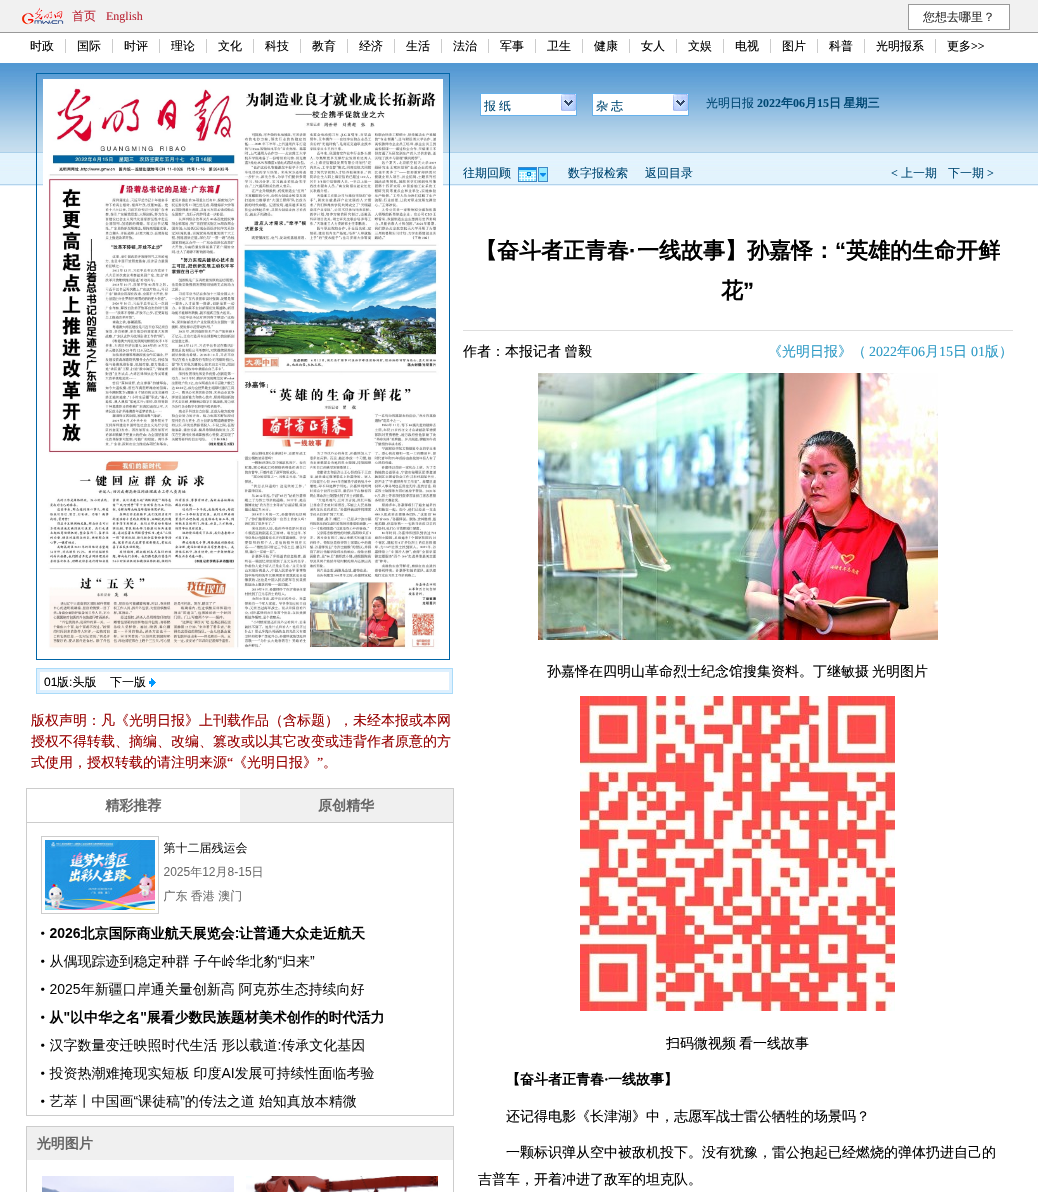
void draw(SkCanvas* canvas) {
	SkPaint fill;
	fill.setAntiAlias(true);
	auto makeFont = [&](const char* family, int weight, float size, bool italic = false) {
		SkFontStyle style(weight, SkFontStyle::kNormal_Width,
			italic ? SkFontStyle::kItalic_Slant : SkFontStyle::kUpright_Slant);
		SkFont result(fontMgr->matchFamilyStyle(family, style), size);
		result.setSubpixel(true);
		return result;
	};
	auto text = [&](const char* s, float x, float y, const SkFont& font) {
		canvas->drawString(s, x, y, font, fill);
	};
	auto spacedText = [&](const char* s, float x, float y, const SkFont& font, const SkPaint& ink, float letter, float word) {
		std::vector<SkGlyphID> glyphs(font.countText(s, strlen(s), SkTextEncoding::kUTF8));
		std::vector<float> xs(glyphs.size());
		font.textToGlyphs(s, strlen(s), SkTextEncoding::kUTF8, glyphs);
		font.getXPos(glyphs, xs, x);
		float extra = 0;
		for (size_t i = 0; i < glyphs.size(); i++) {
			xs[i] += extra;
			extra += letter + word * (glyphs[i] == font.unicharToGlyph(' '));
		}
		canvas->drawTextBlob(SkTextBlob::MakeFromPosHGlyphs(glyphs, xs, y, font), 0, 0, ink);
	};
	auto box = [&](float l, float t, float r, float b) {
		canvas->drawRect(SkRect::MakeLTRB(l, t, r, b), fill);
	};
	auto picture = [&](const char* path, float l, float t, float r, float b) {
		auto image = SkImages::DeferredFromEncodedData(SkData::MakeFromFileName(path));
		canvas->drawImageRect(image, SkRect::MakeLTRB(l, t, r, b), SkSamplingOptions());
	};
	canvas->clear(0xFFFFFFFF);
	fill.setColor(0xFFF1F1F1);
	box(0, 0, 1038, 32);
	fill.setColor(0xFF999999);
	box(0, 32, 1038, 33);
	picture("image0.png", 21, 7, 64, 25);
	fill.setColor(0xFFFFFFFF);
	canvas->drawRect(SkRect::MakeLTRB(908.5f, 4.5f, 1009.5f, 29.5f), fill);
	fill.setStyle(SkPaint::kStroke_Style);
	fill.setStrokeWidth(1);
	fill.setColor(0xFF999999);
	canvas->drawRect(SkRect::MakeLTRB(908.5f, 4.5f, 1009.5f, 29.5f), fill);
	fill.setStyle(SkPaint::kFill_Style);
	fill.setColor(0xFFCCCCCC);
	box(65, 39, 66, 53);
	box(112, 39, 113, 53);
	box(159, 39, 160, 53);
	box(206, 39, 207, 53);
	box(253, 39, 254, 53);
	box(300, 39, 301, 53);
	box(347, 39, 348, 53);
	box(394, 39, 395, 53);
	box(441, 39, 442, 53);
	box(488, 39, 489, 53);
	box(535, 39, 536, 53);
	box(582, 39, 583, 53);
	box(629, 39, 630, 53);
	box(676, 39, 677, 53);
	box(723, 39, 724, 53);
	box(770, 39, 771, 53);
	box(817, 39, 818, 53);
	box(864, 39, 865, 53);
	box(935, 39, 936, 53);
	picture("image1.png", 0, 63, 1038, 152);
	fill.setColor(0xFFACD0EA);
	box(0, 152, 1038, 153);
	picture("image9.png", 0, 153, 1038, 186);
	fill.setStyle(SkPaint::kStroke_Style);
	fill.setColor(0xFF0065A7);
	canvas->drawRect(SkRect::MakeLTRB(36.5f, 73.5f, 449.5f, 659.5f), fill);
	picture("image2.png", 43, 79, 443, 649);
	fill.setColor(0xFFAADBF9);
	canvas->drawRect(SkRect::MakeLTRB(36.5f, 668.5f, 452.5f, 693.5f), fill);
	fill.setStrokeWidth(3);
	fill.setColor(0xFFDEF0FE);
	canvas->drawRect(SkRect::MakeLTRB(38.5f, 670.5f, 450.5f, 691.5f), fill);
	picture("image3.png", 149, 678, 156, 687);
	picture("image4.png", 26, 788, 454, 1192);
	fill.setStyle(SkPaint::kFill_Style);
	fill.setColor(0xFFFFFFFF);
	canvas->drawRect(SkRect::MakeLTRB(480.5f, 93.5f, 576.5f, 115.5f), fill);
	fill.setStyle(SkPaint::kStroke_Style);
	fill.setStrokeWidth(1);
	fill.setColor(0xFF66B1EB);
	canvas->drawRect(SkRect::MakeLTRB(480.5f, 93.5f, 576.5f, 115.5f), fill);
	picture("image5.png", 561, 94, 576, 111);
	fill.setStyle(SkPaint::kFill_Style);
	fill.setColor(0xFFFFFFFF);
	canvas->drawRect(SkRect::MakeLTRB(592.5f, 93.5f, 688.5f, 115.5f), fill);
	fill.setStyle(SkPaint::kStroke_Style);
	fill.setColor(0xFF66B1EB);
	canvas->drawRect(SkRect::MakeLTRB(592.5f, 93.5f, 688.5f, 115.5f), fill);
	picture("image5.png", 673, 94, 688, 111);
	picture("image6.png", 518, 167, 548, 182);
	fill.setStyle(SkPaint::kFill_Style);
	fill.setColor(0xFFDEDEDE);
	box(463, 330, 1013, 331);
	picture("image7.png", 538, 373, 938, 640);
	picture("image8.png", 580, 696, 895, 1011);
	auto font1 = makeFont("WenQuanYi Zen Hei", 500, 12);
	fill.setColor(0xFFBB2737);
	text("首页", 72, 20, font1);
	auto font2 = makeFont("Liberation Serif", 400, 12);
	text("English", 106, 20, font2);
	fill.setColor(0xFF333333);
	text("您想去哪里？", 923, 21, font1);
	fill.setColor(0xFF000000);
	text("时政", 30, 50, font1);
	text("国际", 77, 50, font1);
	text("时评", 124, 50, font1);
	text("理论", 171, 50, font1);
	text("文化", 218, 50, font1);
	text("科技", 265, 50, font1);
	text("教育", 312, 50, font1);
	text("经济", 359, 50, font1);
	text("生活", 406, 50, font1);
	text("法治", 453, 50, font1);
	text("军事", 500, 50, font1);
	text("卫生", 547, 50, font1);
	text("健康", 594, 50, font1);
	text("女人", 641, 50, font1);
	text("文娱", 688, 50, font1);
	text("电视", 735, 50, font1);
	text("图片", 782, 50, font1);
	text("科普", 829, 50, font1);
	text("光明报系", 876, 50, font1);
	text("更多", 947, 50, font1);
	text(">>", 971, 50, font2);
	auto font3 = makeFont("Liberation Sans", 400, 12);
	text("01", 44, 686, font3);
	text("版 头版", 57, 686, font1);
	text("下一版", 110, 686, font1);
	text(":", 69, 686, font3);
	auto font4 = makeFont("WenQuanYi Zen Hei", 500, 14);
	fill.setColor(0xFF990000);
	text("版权声明：凡《光明日报》上刊载作品（含标题），未经本报或本网", 31, 725, font4);
	text("授权不得转载、摘编、改编、篡改或以其它改变或违背作者原意的方", 31, 746, font4);
	text("式使用，授权转载的请注明来源", 31, 767, font4);
	auto font5 = makeFont("Liberation Serif", 400, 14);
	text("“", 227, 767, font5);
	text("《光明日报》", 233, 767, font4);
	text("”", 317, 767, font5);
	text("。", 323, 767, font4);
	fill.setColor(0xFF004873);
	text("报", 484, 110, font1);
	text("纸", 499, 110, font1);
	text("杂", 596, 110, font1);
	text("志", 611, 110, font1);
	text("光明日报", 706, 107, font1);
	auto font6 = makeFont("Liberation Serif", 700, 12);
	text("2022", 757, 107, font6);
	auto font7 = makeFont("WenQuanYi Zen Hei", 700, 12);
	text("年", 781, 107, font7);
	text("06", 793, 107, font6);
	text("月", 805, 107, font7);
	text("15", 817, 107, font6);
	spacedText("日 星期三", 829, 107, font7, fill, 0, -1);
	text("往期回顾", 463, 177, font1);
	text("数字报检索", 568, 177, font1);
	text("返回目录", 645, 177, font1);
	text("<", 891, 177, font2);
	text("上一期", 901, 177, font1);
	text("下一期", 948, 177, font1);
	text(">", 987, 177, font2);
	auto font8 = makeFont("WenQuanYi Zen Hei", 700, 22);
	fill.setColor(0xFF000000);
	text("【奋斗者正青春", 475, 258, font8);
	text("一线故事】孙嘉怿：", 637, 258, font8);
	auto font9 = makeFont("Liberation Sans", 700, 22);
	text("“", 835, 258, font9);
	text("英雄的生命开鲜", 846, 258, font8);
	text("·", 629, 258, font9);
	text("花", 721, 298, font8);
	text("”", 743, 298, font9);
	spacedText("作者：本报记者 曾毅", 463, 356, font4, fill, 0, -1);
	fill.setColor(0xFF2E9BC6);
	text("《光明日报》（", 768, 356, font4);
	text("2022", 869, 356, font5);
	text("年", 897, 356, font4);
	text("06", 911, 356, font5);
	text("月", 925, 356, font4);
	text("15", 939, 356, font5);
	text("日", 953, 356, font4);
	text("01", 971, 356, font5);
	text("版）", 985, 356, font4);
	fill.setColor(0xFF000000);
	text("孙嘉怿在四明山革命烈士纪念馆搜集资料。丁继敏摄", 547, 676, font4);
	text("光明图片", 872, 676, font4);
	text("扫码微视频", 666, 1048, font4);
	text("看一线故事", 739, 1048, font4);
	auto font10 = makeFont("WenQuanYi Zen Hei", 700, 14);
	text("【奋斗者正青春", 506, 1084, font10);
	auto font11 = makeFont("Liberation Serif", 700, 14);
	text("·", 604, 1084, font11);
	text("一线故事】", 608, 1084, font10);
	text("还记得电影《长津湖》中，志愿军战士雷公牺牲的场景吗？", 506, 1121, font4);
	text("一颗标识弹从空中被敌机投下。没有犹豫，雷公抱起已经燃烧的弹体扔进自己的", 506, 1157, font4);
	text("吉普车，开着冲进了敌军的坦克队。", 478, 1184, font4);
}
